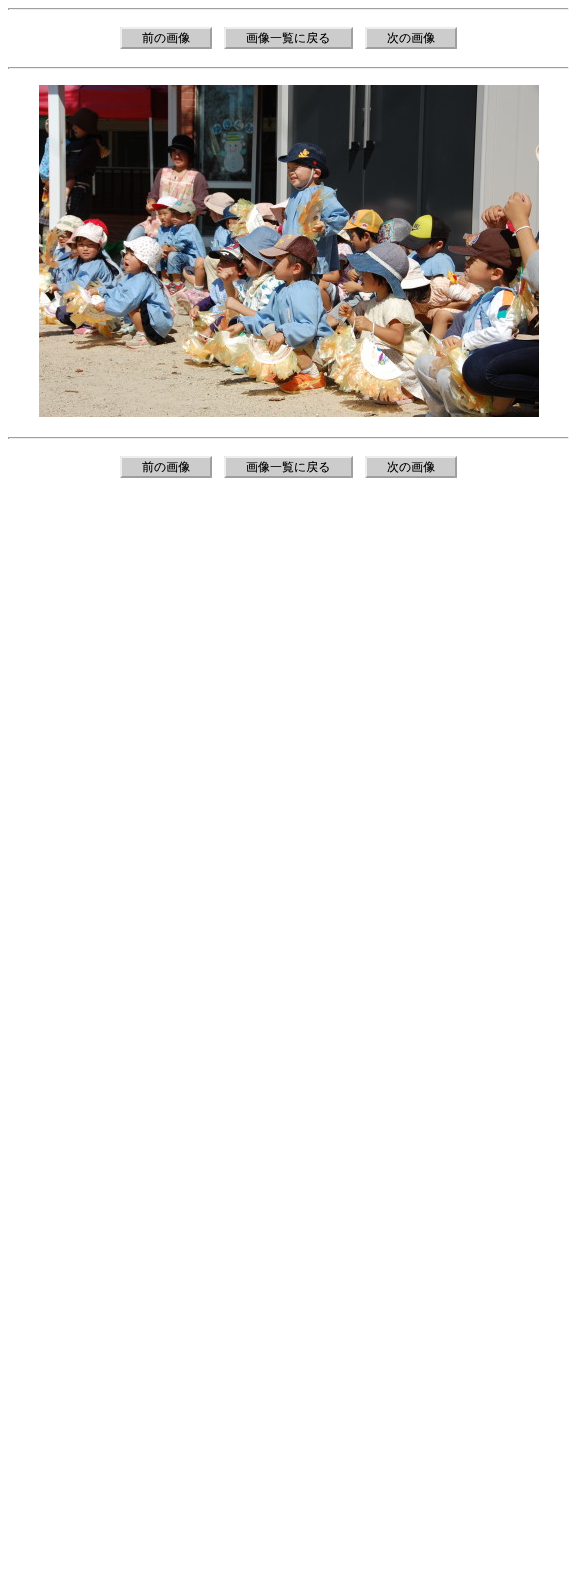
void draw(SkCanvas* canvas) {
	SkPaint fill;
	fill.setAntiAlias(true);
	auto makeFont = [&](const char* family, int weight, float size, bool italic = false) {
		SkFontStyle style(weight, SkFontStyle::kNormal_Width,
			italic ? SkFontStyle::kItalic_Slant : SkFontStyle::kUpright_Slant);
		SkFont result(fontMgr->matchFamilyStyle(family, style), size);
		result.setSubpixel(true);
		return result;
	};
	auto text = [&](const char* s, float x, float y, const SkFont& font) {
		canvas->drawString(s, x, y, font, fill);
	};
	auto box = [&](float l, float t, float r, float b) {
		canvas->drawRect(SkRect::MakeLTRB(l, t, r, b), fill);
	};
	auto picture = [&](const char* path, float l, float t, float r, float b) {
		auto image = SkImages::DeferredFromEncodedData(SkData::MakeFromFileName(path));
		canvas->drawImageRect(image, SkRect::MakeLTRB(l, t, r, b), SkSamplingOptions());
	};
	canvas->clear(0xFFFFFFFF);
	fill.setColor(0xFF9F9F9F);
	box(8, 8, 569, 9);
	fill.setColor(0xFFEEEEEE);
	box(568, 8, 569, 10);
	box(8, 9, 569, 10);
	fill.setColor(0xFF9F9F9F);
	box(8, 8, 9, 10);
	fill.setColor(0xFFCCCCCC);
	box(120, 27, 212, 49);
	fill.setColor(0xFFEEEEEE);
	canvas->drawPath(SkPathBuilder().moveTo(120, 27).lineTo(212, 27).lineTo(210, 29).lineTo(122, 29).close().detach(), fill);
	fill.setColor(0xFF9F9F9F);
	canvas->drawPath(SkPathBuilder().moveTo(212, 27).lineTo(212, 49).lineTo(210, 47).lineTo(210, 29).close().detach(), fill);
	canvas->drawPath(SkPathBuilder().moveTo(212, 49).lineTo(120, 49).lineTo(122, 47).lineTo(210, 47).close().detach(), fill);
	fill.setColor(0xFFEEEEEE);
	canvas->drawPath(SkPathBuilder().moveTo(120, 49).lineTo(120, 27).lineTo(122, 29).lineTo(122, 47).close().detach(), fill);
	fill.setColor(0xFFCCCCCC);
	box(224, 27, 353, 49);
	fill.setColor(0xFFEEEEEE);
	canvas->drawPath(SkPathBuilder().moveTo(224, 27).lineTo(353, 27).lineTo(351, 29).lineTo(226, 29).close().detach(), fill);
	fill.setColor(0xFF9F9F9F);
	canvas->drawPath(SkPathBuilder().moveTo(353, 27).lineTo(353, 49).lineTo(351, 47).lineTo(351, 29).close().detach(), fill);
	canvas->drawPath(SkPathBuilder().moveTo(353, 49).lineTo(224, 49).lineTo(226, 47).lineTo(351, 47).close().detach(), fill);
	fill.setColor(0xFFEEEEEE);
	canvas->drawPath(SkPathBuilder().moveTo(224, 49).lineTo(224, 27).lineTo(226, 29).lineTo(226, 47).close().detach(), fill);
	fill.setColor(0xFFCCCCCC);
	box(365, 27, 457, 49);
	fill.setColor(0xFFEEEEEE);
	canvas->drawPath(SkPathBuilder().moveTo(365, 27).lineTo(457, 27).lineTo(455, 29).lineTo(367, 29).close().detach(), fill);
	fill.setColor(0xFF9F9F9F);
	canvas->drawPath(SkPathBuilder().moveTo(457, 27).lineTo(457, 49).lineTo(455, 47).lineTo(455, 29).close().detach(), fill);
	canvas->drawPath(SkPathBuilder().moveTo(457, 49).lineTo(365, 49).lineTo(367, 47).lineTo(455, 47).close().detach(), fill);
	fill.setColor(0xFFEEEEEE);
	canvas->drawPath(SkPathBuilder().moveTo(365, 49).lineTo(365, 27).lineTo(367, 29).lineTo(367, 47).close().detach(), fill);
	fill.setColor(0xFF9F9F9F);
	box(8, 67, 569, 68);
	fill.setColor(0xFFEEEEEE);
	box(568, 67, 569, 69);
	box(8, 68, 569, 69);
	fill.setColor(0xFF9F9F9F);
	box(8, 67, 9, 69);
	picture("image0.png", 39, 85, 539, 417);
	box(8, 437, 569, 438);
	fill.setColor(0xFFEEEEEE);
	box(568, 437, 569, 439);
	box(8, 438, 569, 439);
	fill.setColor(0xFF9F9F9F);
	box(8, 437, 9, 439);
	fill.setColor(0xFFCCCCCC);
	box(120, 456, 212, 478);
	fill.setColor(0xFFEEEEEE);
	canvas->drawPath(SkPathBuilder().moveTo(120, 456).lineTo(212, 456).lineTo(210, 458).lineTo(122, 458).close().detach(), fill);
	fill.setColor(0xFF9F9F9F);
	canvas->drawPath(SkPathBuilder().moveTo(212, 456).lineTo(212, 478).lineTo(210, 476).lineTo(210, 458).close().detach(), fill);
	canvas->drawPath(SkPathBuilder().moveTo(212, 478).lineTo(120, 478).lineTo(122, 476).lineTo(210, 476).close().detach(), fill);
	fill.setColor(0xFFEEEEEE);
	canvas->drawPath(SkPathBuilder().moveTo(120, 478).lineTo(120, 456).lineTo(122, 458).lineTo(122, 476).close().detach(), fill);
	fill.setColor(0xFFCCCCCC);
	box(224, 456, 353, 478);
	fill.setColor(0xFFEEEEEE);
	canvas->drawPath(SkPathBuilder().moveTo(224, 456).lineTo(353, 456).lineTo(351, 458).lineTo(226, 458).close().detach(), fill);
	fill.setColor(0xFF9F9F9F);
	canvas->drawPath(SkPathBuilder().moveTo(353, 456).lineTo(353, 478).lineTo(351, 476).lineTo(351, 458).close().detach(), fill);
	canvas->drawPath(SkPathBuilder().moveTo(353, 478).lineTo(224, 478).lineTo(226, 476).lineTo(351, 476).close().detach(), fill);
	fill.setColor(0xFFEEEEEE);
	canvas->drawPath(SkPathBuilder().moveTo(224, 478).lineTo(224, 456).lineTo(226, 458).lineTo(226, 476).close().detach(), fill);
	fill.setColor(0xFFCCCCCC);
	box(365, 456, 457, 478);
	fill.setColor(0xFFEEEEEE);
	canvas->drawPath(SkPathBuilder().moveTo(365, 456).lineTo(457, 456).lineTo(455, 458).lineTo(367, 458).close().detach(), fill);
	fill.setColor(0xFF9F9F9F);
	canvas->drawPath(SkPathBuilder().moveTo(457, 456).lineTo(457, 478).lineTo(455, 476).lineTo(455, 458).close().detach(), fill);
	canvas->drawPath(SkPathBuilder().moveTo(457, 478).lineTo(365, 478).lineTo(367, 476).lineTo(455, 476).close().detach(), fill);
	fill.setColor(0xFFEEEEEE);
	canvas->drawPath(SkPathBuilder().moveTo(365, 478).lineTo(365, 456).lineTo(367, 458).lineTo(367, 476).close().detach(), fill);
	auto font1 = makeFont("WenQuanYi Zen Hei", 500, 12);
	fill.setColor(0xFF000000);
	text("前の画像", 142, 42, font1);
	text("画像一覧に戻る", 246, 42, font1);
	text("次の画像", 387, 42, font1);
	text("前の画像", 142, 471, font1);
	text("画像一覧に戻る", 246, 471, font1);
	text("次の画像", 387, 471, font1);
}
